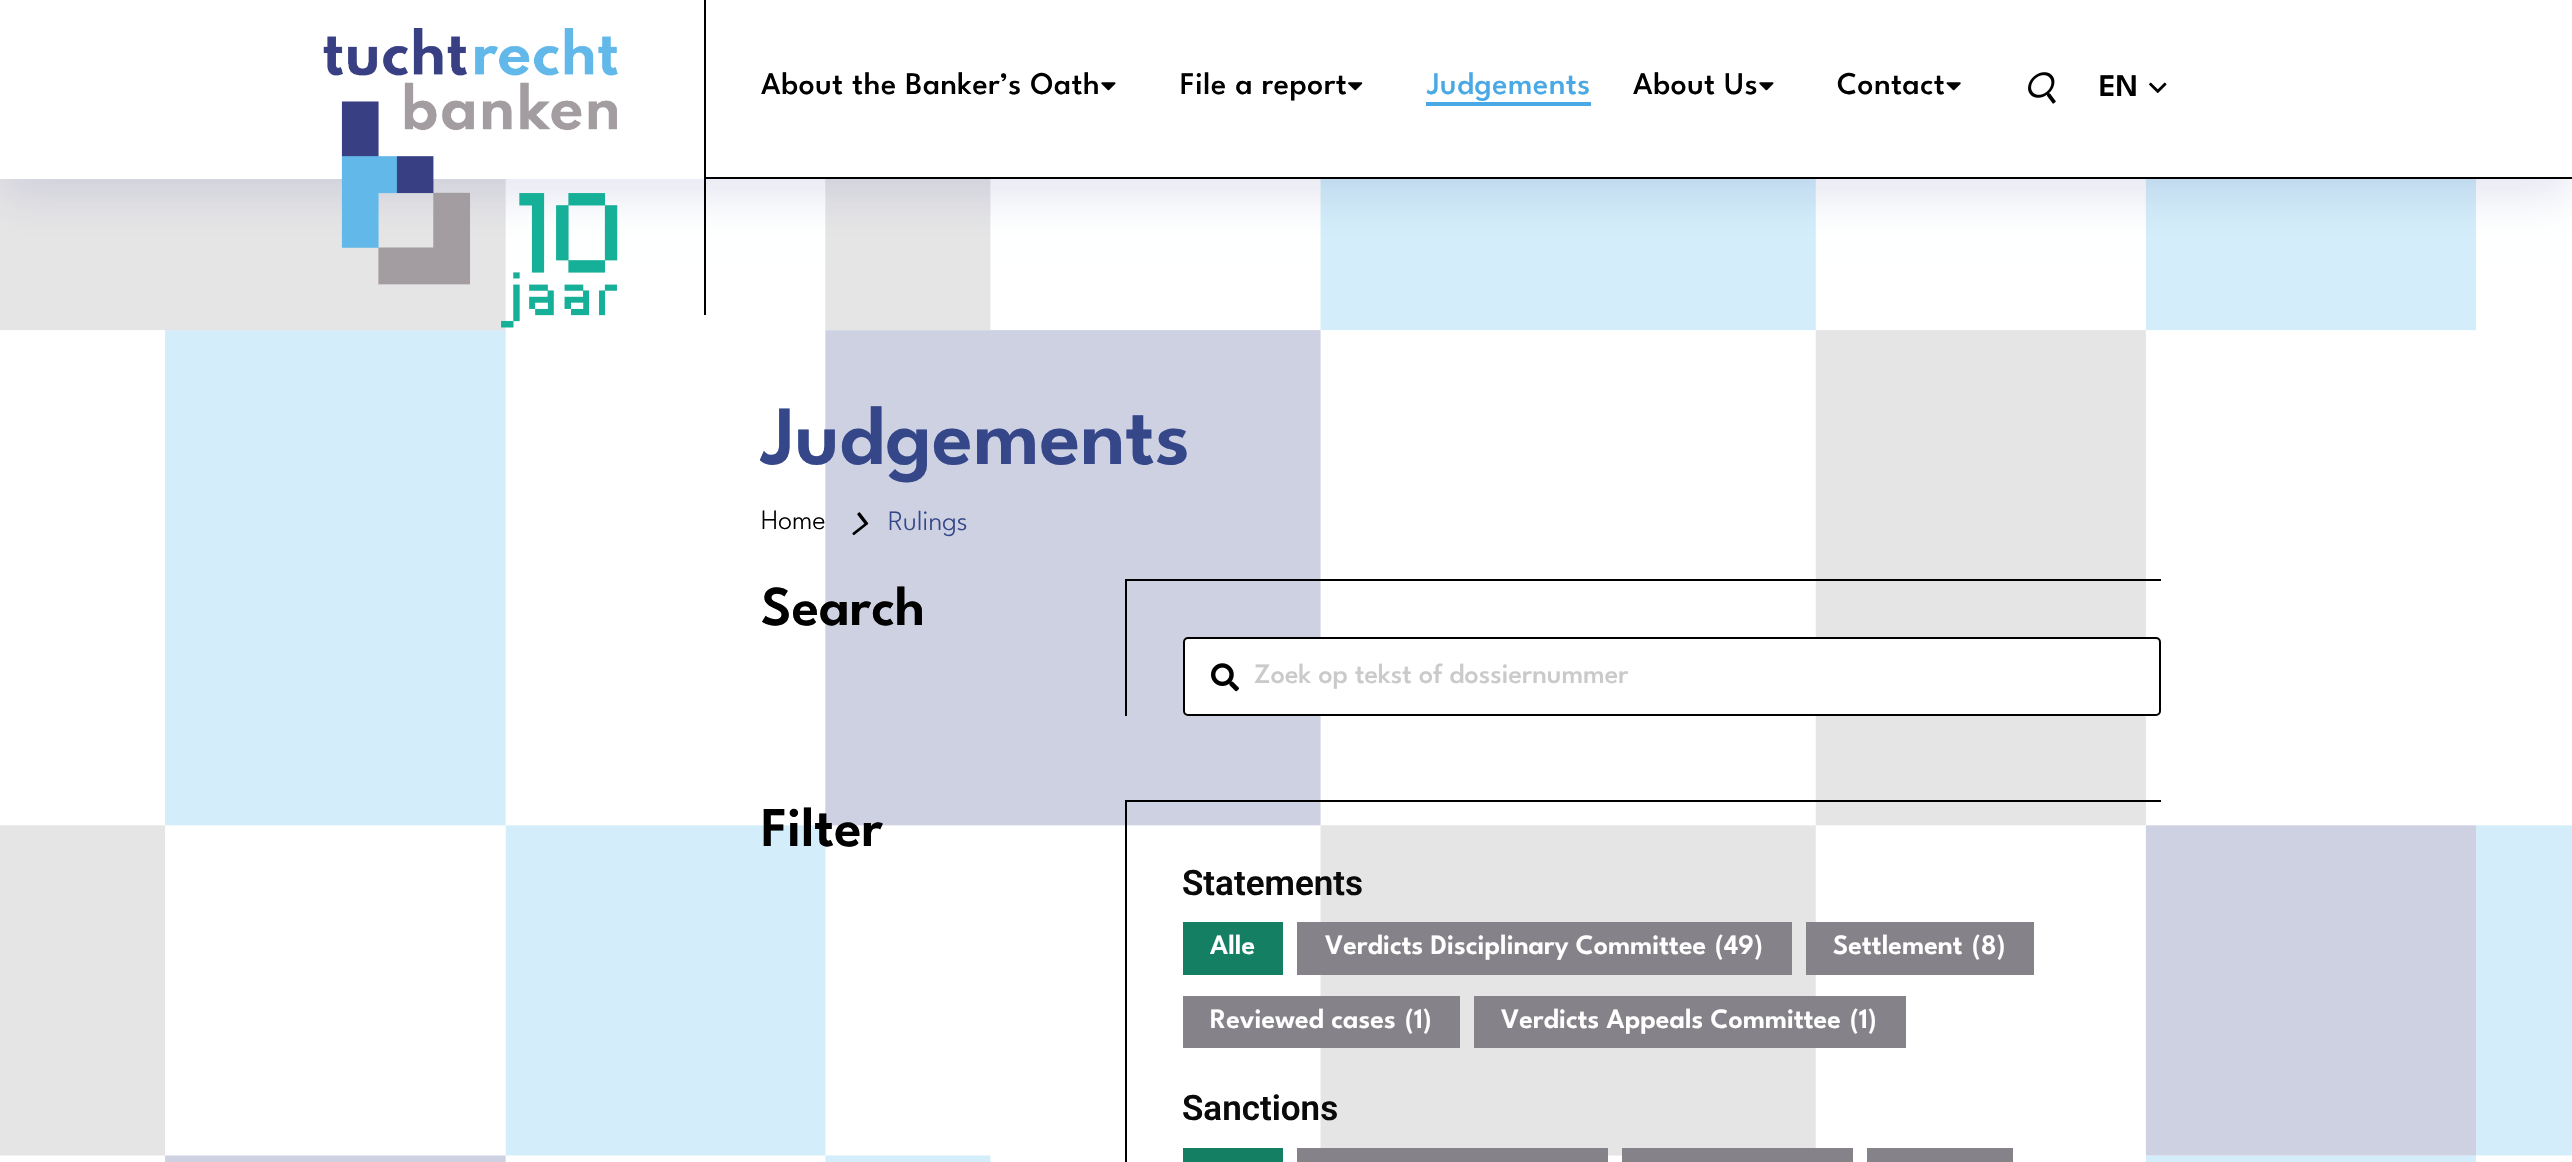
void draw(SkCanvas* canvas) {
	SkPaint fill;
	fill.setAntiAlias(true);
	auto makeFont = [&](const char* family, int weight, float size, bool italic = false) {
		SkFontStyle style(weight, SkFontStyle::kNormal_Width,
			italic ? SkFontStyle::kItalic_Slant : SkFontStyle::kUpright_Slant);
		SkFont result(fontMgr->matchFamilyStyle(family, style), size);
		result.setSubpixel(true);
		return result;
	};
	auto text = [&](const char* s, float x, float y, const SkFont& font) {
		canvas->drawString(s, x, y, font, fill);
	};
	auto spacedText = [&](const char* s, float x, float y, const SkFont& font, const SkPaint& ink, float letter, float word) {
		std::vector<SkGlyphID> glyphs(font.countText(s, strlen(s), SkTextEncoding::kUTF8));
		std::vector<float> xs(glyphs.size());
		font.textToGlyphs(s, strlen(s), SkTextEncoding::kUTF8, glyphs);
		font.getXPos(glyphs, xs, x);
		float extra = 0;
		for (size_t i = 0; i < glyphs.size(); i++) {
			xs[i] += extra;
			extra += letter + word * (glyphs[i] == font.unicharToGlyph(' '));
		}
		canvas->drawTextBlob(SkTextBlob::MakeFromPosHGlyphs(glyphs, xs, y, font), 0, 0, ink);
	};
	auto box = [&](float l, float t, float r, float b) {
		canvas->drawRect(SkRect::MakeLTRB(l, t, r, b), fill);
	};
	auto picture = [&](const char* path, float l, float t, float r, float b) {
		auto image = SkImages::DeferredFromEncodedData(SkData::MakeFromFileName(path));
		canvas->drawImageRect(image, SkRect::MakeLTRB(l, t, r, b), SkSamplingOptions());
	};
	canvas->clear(0xFFFFFFFF);
	picture("image6.png", 0, 179, 2572, 1162);
	fill.setColor(0x1A040E72);
	fill.setMaskFilter(SkMaskFilter::MakeBlur(kNormal_SkBlurStyle, 22));
	canvas->drawRect(SkRect::MakeLTRB(0, 18, 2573, 196), fill);
	fill.setMaskFilter(nullptr);
	fill.setColor(0xFFFFFFFF);
	box(0, 0, 2572, 179);
	picture("image0.png", 323, 28, 618, 328);
	fill.setColor(0xFF000000);
	box(704, 177, 2572, 179);
	box(704, 0, 706, 315);
	picture("image1.png", 1101, 82, 1116, 91);
	picture("image2.png", 1348, 82, 1363, 91);
	fill.setColor(0xFF4AA9E4);
	box(1426, 102, 1591, 106);
	picture("image1.png", 1759, 82, 1774, 91);
	picture("image3.png", 1946, 82, 1961, 91);
	picture("image4.png", 2028, 72, 2056, 104);
	picture("image5.png", 2149, 82, 2167, 93);
	picture("image7.png", 852, 512, 869, 536);
	fill.setColor(0xFF000000);
	box(1125, 579, 2161, 581);
	box(1125, 579, 1127, 716);
	fill.setColor(0xFFFFFFFF);
	canvas->drawRoundRect(SkRect::MakeLTRB(1184, 638, 2160, 715), 4, 4, fill);
	fill.setStyle(SkPaint::kStroke_Style);
	fill.setStrokeWidth(2);
	fill.setColor(0xFF000000);
	canvas->drawRoundRect(SkRect::MakeLTRB(1184, 638, 2160, 715), 4, 4, fill);
	picture("image8.png", 1211, 663, 1239, 692);
	fill.setStyle(SkPaint::kFill_Style);
	box(1125, 800, 2161, 802);
	box(1125, 800, 1127, 1162);
	fill.setColor(0xFF157F63);
	box(1183, 922, 1283, 975);
	fill.setColor(0xFF868289);
	box(1297, 922, 1792, 975);
	box(1806, 922, 2034, 975);
	box(1183, 996, 1460, 1048);
	box(1474, 996, 1906, 1048);
	fill.setColor(0xFF157F63);
	box(1183, 1148, 1283, 1162);
	fill.setColor(0xFF868289);
	box(1297, 1148, 1608, 1162);
	box(1622, 1148, 1853, 1162);
	box(1867, 1148, 2013, 1162);
	auto font1 = makeFont("League Spartan", 500, 31.5f);
	fill.setColor(0xFF000000);
	spacedText("About the Banker’s Oath", 761, 94, font1, fill, 0.6f, 0);
	spacedText("File a report", 1180, 94, font1, fill, 0.6f, 0);
	fill.setColor(0xFF4AA9E4);
	spacedText("Judgements", 1427, 94, font1, fill, 0.6f, 0);
	fill.setColor(0xFF000000);
	spacedText("About Us", 1633, 94, font1, fill, 0.6f, 0);
	spacedText("Contact", 1837, 94, font1, fill, 0.6f, 0);
	auto font2 = makeFont("League Spartan", 600, 31.5f);
	text("EN", 2099, 96, font2);
	auto font3 = makeFont("League Spartan", 600, 84);
	fill.setColor(0xFF354789);
	text("Judgements", 761, 464, font3);
	auto font4 = makeFont("League Spartan", 300, 28);
	fill.setColor(0xFF000000);
	text("Home", 761, 529, font4);
	fill.setColor(0xFF354789);
	text("Rulings", 888, 530, font4);
	auto font5 = makeFont("League Spartan", 600, 56);
	fill.setColor(0xFF000000);
	text("Search", 761, 625, font5);
	auto font6 = makeFont("League Spartan", 500, 28);
	fill.setColor(0xFFCACACA);
	text("Zoek op tekst of dossiernummer", 1254, 683, font6);
	fill.setColor(0xFF000000);
	text("Filter", 761, 846, font5);
	auto font7 = makeFont("Roboto", 600, 35);
	fill.setColor(0xFF0A0A0A);
	text("Statements", 1182, 895, font7);
	auto font8 = makeFont("League Spartan", 600, 28);
	fill.setColor(0xFFFFFFFF);
	text("Alle", 1210, 954, font8);
	text("Verdicts Disciplinary Committee", 1325, 954, font8);
	text("(49)", 1715, 954, font8);
	text("Settlement", 1833, 954, font8);
	text("(8)", 1972, 954, font8);
	text("Reviewed cases", 1210, 1028, font8);
	text("(1)", 1405, 1028, font8);
	text("Verdicts Appeals Committee", 1501, 1028, font8);
	text("(1)", 1850, 1028, font8);
	fill.setColor(0xFF0A0A0A);
	text("Sanctions", 1182, 1120, font7);
}
